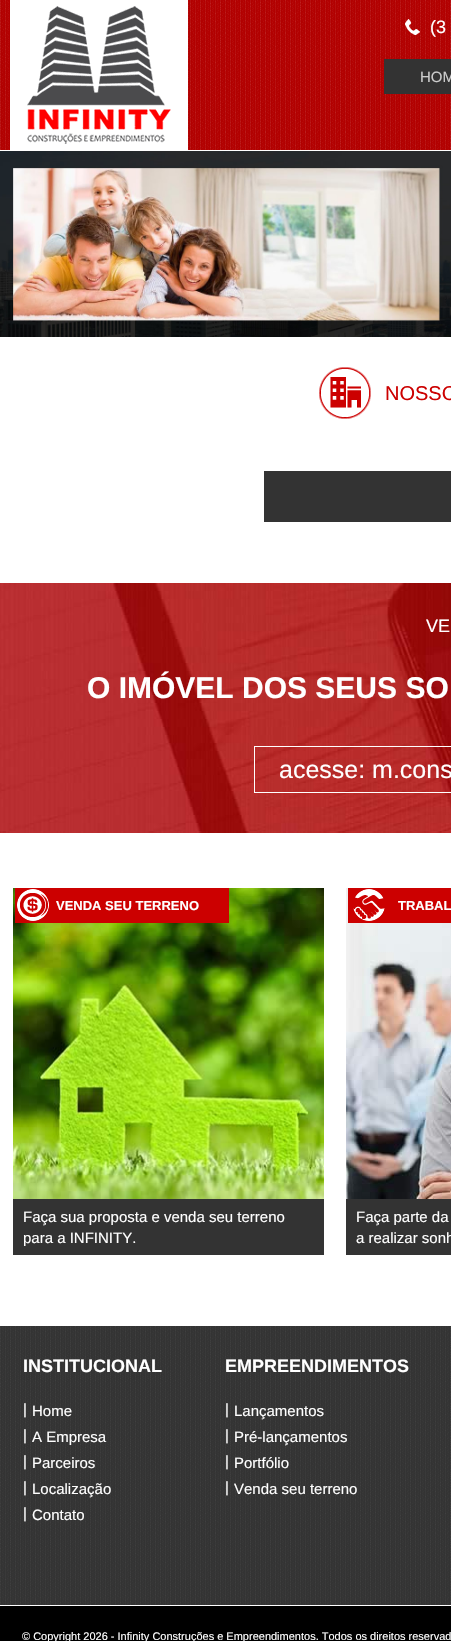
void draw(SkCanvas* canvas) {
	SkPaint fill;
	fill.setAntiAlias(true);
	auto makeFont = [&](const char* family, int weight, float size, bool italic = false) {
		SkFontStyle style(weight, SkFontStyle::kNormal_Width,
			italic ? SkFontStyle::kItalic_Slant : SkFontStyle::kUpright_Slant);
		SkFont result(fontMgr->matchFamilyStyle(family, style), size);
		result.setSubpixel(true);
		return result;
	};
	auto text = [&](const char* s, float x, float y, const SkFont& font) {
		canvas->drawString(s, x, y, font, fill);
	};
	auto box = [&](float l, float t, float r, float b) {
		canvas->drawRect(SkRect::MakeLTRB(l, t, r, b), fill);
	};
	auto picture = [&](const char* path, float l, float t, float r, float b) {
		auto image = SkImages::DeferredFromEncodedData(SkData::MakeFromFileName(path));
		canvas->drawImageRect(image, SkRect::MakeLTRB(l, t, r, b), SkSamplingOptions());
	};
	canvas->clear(0xFFFFFFFF);
	picture("image0.png", 0, 0, 451, 150);
	fill.setColor(0xFFFFFFFF);
	box(10, 0, 188, 150);
	picture("image1.png", 27, 6, 171, 144);
	picture("image2.png", 405, 19, 420, 35);
	fill.setColor(0xFF333333);
	box(384, 59, 451, 94);
	picture("image3.png", 0, 151, 451, 337);
	picture("image4.png", 319, 367, 371, 419);
	box(264, 471, 451, 522);
	picture("image5.png", 0, 583, 451, 833);
	fill.setStyle(SkPaint::kStroke_Style);
	fill.setStrokeWidth(1);
	fill.setColor(0xFFFFFFFF);
	canvas->drawRect(SkRect::MakeLTRB(254.5f, 746.5f, 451.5f, 792.5f), fill);
	picture("image6.png", 13, 888, 324, 1199);
	fill.setStyle(SkPaint::kFill_Style);
	fill.setColor(0xFFCC0000);
	box(15, 888, 229, 923);
	picture("image7.png", 17, 889, 49, 921);
	fill.setColor(0xFF333333);
	box(13, 1199, 324, 1255);
	picture("image8.png", 346, 888, 451, 1199);
	fill.setColor(0xFFCC0000);
	box(348, 888, 451, 923);
	picture("image9.png", 353, 889, 385, 921);
	fill.setColor(0xFF333333);
	box(346, 1199, 451, 1255);
	picture("image10.png", 0, 1326, 451, 1605);
	fill.setColor(0xFF000000);
	box(0, 1606, 451, 1641);
	auto font1 = makeFont("Liberation Sans", 400, 18);
	fill.setColor(0xFFFFFFFF);
	text("(3", 430, 33, font1);
	auto font2 = makeFont("Liberation Sans", 400, 15);
	fill.setColor(0xFFCCCCCC);
	text("HOM", 420, 82, font2);
	auto font3 = makeFont("Liberation Sans", 400, 20);
	fill.setColor(0xFFCC0000);
	text("NOSSO", 385, 400, font3);
	fill.setColor(0xFFFFFFFF);
	text("VE", 426, 632, font1);
	auto font4 = makeFont("Liberation Sans", 700, 30);
	text("O IMÓVEL DOS SEUS SO", 87, 698, font4);
	auto font5 = makeFont("Liberation Sans", 400, 25);
	text("acesse: m.cons", 279, 778, font5);
	auto font6 = makeFont("Liberation Sans", 700, 13);
	text("VENDA SEU TERRENO", 56, 910, font6);
	text("Faça sua proposta e venda seu terreno", 23, 1222, font2);
	text("para a INFINITY.", 23, 1243, font2);
	text("TRABAL", 398, 910, font6);
	text("Faça parte da", 356, 1222, font2);
	text("a realizar sonh", 356, 1243, font2);
	auto font7 = makeFont("Liberation Sans", 700, 18);
	text("INSTITUCIONAL", 23, 1372, font7);
	text("|", 23, 1414, font2);
	text("Home", 32, 1416, font2);
	text("|", 23, 1440, font2);
	text("A Empresa", 32, 1442, font2);
	text("|", 23, 1466, font2);
	text("Parceiros", 32, 1468, font2);
	text("|", 23, 1492, font2);
	text("Localização", 32, 1494, font2);
	text("|", 23, 1518, font2);
	text("Contato", 32, 1520, font2);
	text("EMPREENDIMENTOS", 225, 1372, font7);
	text("|", 225, 1414, font2);
	text("Lançamentos", 234, 1416, font2);
	text("|", 225, 1440, font2);
	text("Pré-lançamentos", 234, 1442, font2);
	text("|", 225, 1466, font2);
	text("Portfólio", 234, 1468, font2);
	text("|", 225, 1492, font2);
	text("Venda seu terreno", 234, 1494, font2);
	auto font8 = makeFont("Liberation Sans", 400, 11);
	text("© Copyright 2026 - Infinity Construções e Empreendimentos. Todos os direitos reservad", 22, 1640, font8);
}
